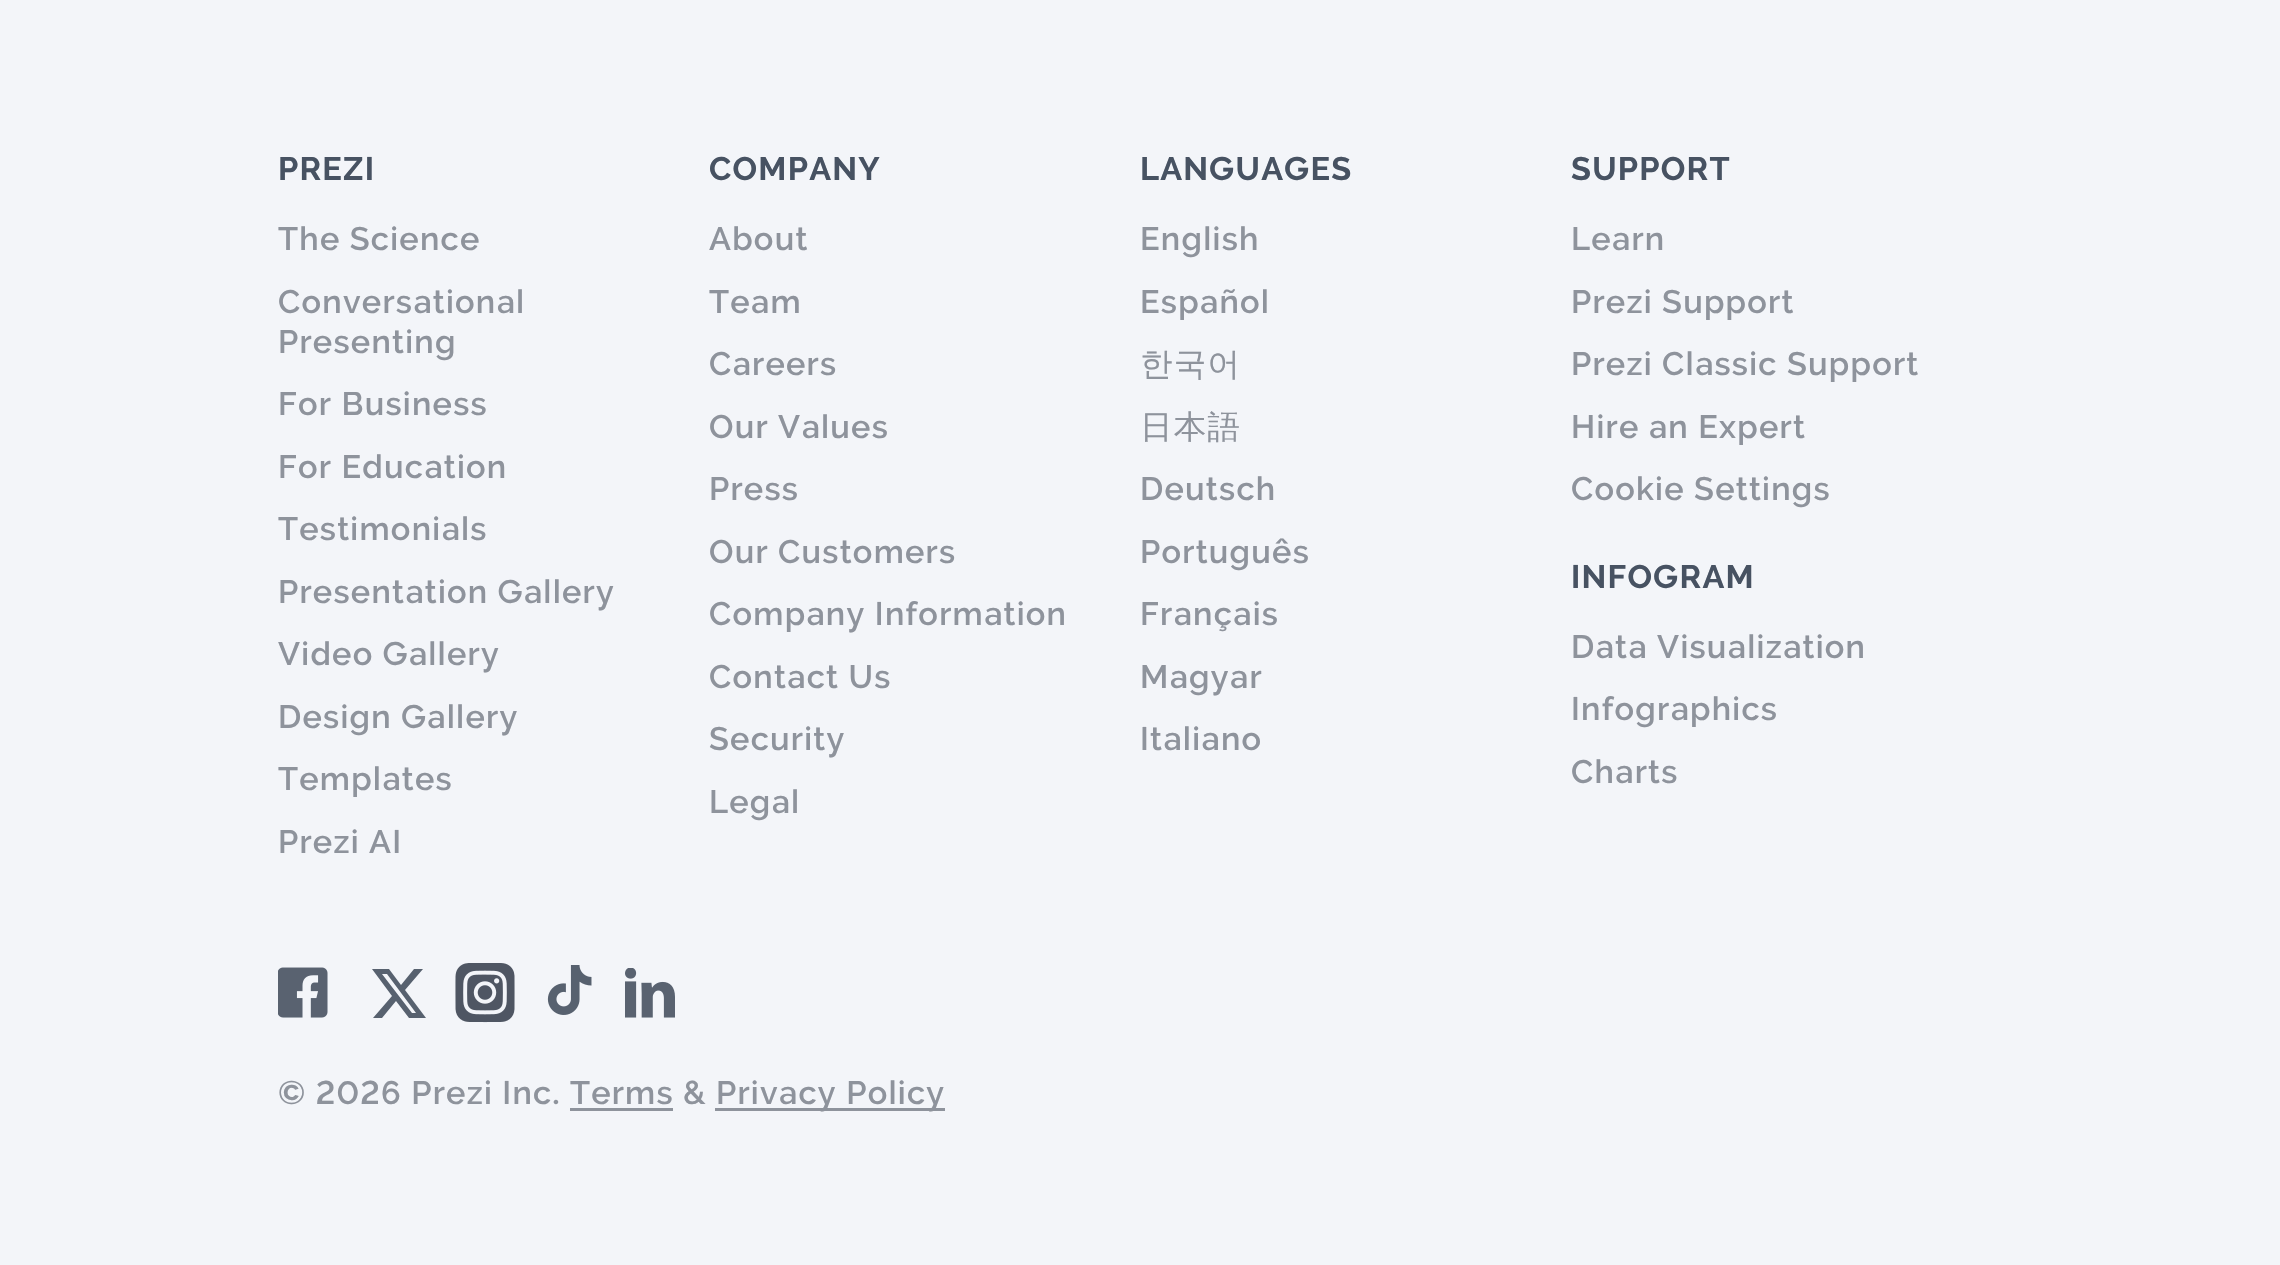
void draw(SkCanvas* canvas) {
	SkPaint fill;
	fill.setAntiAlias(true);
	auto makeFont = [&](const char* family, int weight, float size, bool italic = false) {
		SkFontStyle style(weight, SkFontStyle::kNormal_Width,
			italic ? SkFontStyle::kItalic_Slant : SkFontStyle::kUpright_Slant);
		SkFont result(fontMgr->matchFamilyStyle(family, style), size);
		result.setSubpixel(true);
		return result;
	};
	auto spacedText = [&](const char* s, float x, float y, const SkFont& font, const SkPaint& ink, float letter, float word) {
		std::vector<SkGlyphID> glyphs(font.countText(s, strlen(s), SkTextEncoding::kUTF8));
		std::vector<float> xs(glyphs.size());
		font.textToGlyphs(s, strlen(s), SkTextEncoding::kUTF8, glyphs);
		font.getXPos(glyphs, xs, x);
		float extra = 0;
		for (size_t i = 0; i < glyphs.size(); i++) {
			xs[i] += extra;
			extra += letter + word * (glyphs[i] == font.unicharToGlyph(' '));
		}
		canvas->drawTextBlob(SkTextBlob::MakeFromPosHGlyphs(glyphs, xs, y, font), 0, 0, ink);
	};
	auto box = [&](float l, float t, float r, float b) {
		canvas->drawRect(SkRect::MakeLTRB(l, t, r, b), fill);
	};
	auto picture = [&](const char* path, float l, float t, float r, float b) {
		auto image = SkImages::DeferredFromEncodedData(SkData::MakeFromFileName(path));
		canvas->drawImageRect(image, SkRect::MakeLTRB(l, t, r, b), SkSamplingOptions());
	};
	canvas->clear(0xFFF3F5F9);
	picture("image0.png", 278, 967, 328, 1018);
	fill.setColor(0xFF57616F);
	canvas->drawPath(SkPathBuilder().moveTo(373, 1018).lineTo(392, 996).lineTo(372, 969).lineTo(389, 969).lineTo(401, 985).lineTo(414, 969).lineTo(423, 969).lineTo(405, 990).lineTo(426, 1018).lineTo(409, 1018).lineTo(396, 1001).lineTo(382, 1018).close().moveTo(416, 1013).lineTo(387, 974).lineTo(382, 974).lineTo(412, 1013).close().detach(), fill);
	picture("image1.png", 455, 963, 515, 1023);
	picture("image2.png", 547, 965, 592, 1015);
	picture("image3.png", 625, 968, 675, 1018);
	fill.setColor(0xFF8E939C);
	box(570, 1108, 673, 1111);
	box(715, 1108, 945, 1111);
	auto font1 = makeFont("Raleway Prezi", 700, 32.5f);
	fill.setColor(0xFF475262);
	spacedText("PREZI", 278, 180, font1, fill, 1.25f, 0);
	auto font2 = makeFont("Raleway Prezi", 600, 32.5f);
	fill.setColor(0xFF8E939C);
	spacedText("The Science", 278, 250, font2, fill, 1.25f, 0);
	spacedText("Conversational", 278, 313, font2, fill, 1.25f, 0);
	spacedText("Presenting", 278, 353, font2, fill, 1.25f, 0);
	spacedText("For Business", 278, 415, font2, fill, 1.25f, 0);
	spacedText("For Education", 278, 478, font2, fill, 1.25f, 0);
	spacedText("Testimonials", 278, 540, font2, fill, 1.25f, 0);
	spacedText("Presentation Gallery", 278, 603, font2, fill, 1.25f, 0);
	spacedText("Video Gallery", 278, 665, font2, fill, 1.25f, 0);
	spacedText("Design Gallery", 278, 728, font2, fill, 1.25f, 0);
	spacedText("Templates", 278, 790, font2, fill, 1.25f, 0);
	spacedText("Prezi AI", 278, 853, font2, fill, 1.25f, 0);
	fill.setColor(0xFF475262);
	spacedText("COMPANY", 709, 180, font1, fill, 1.25f, 0);
	fill.setColor(0xFF8E939C);
	spacedText("About", 709, 250, font2, fill, 1.25f, 0);
	spacedText("Team", 709, 313, font2, fill, 1.25f, 0);
	spacedText("Careers", 709, 375, font2, fill, 1.25f, 0);
	spacedText("Our Values", 709, 438, font2, fill, 1.25f, 0);
	spacedText("Press", 709, 500, font2, fill, 1.25f, 0);
	spacedText("Our Customers", 709, 563, font2, fill, 1.25f, 0);
	spacedText("Company Information", 709, 625, font2, fill, 1.25f, 0);
	spacedText("Contact Us", 709, 688, font2, fill, 1.25f, 0);
	spacedText("Security", 709, 750, font2, fill, 1.25f, 0);
	spacedText("Legal", 709, 813, font2, fill, 1.25f, 0);
	fill.setColor(0xFF475262);
	spacedText("LANGUAGES", 1140, 180, font1, fill, 1.25f, 0);
	fill.setColor(0xFF8E939C);
	spacedText("English", 1140, 250, font2, fill, 1.25f, 0);
	spacedText("Español", 1140, 313, font2, fill, 1.25f, 0);
	auto font3 = makeFont("WenQuanYi Zen Hei", 500, 32.5f);
	spacedText("한국어", 1140, 375, font3, fill, 1.25f, 0);
	spacedText("日本語", 1140, 438, font3, fill, 1.25f, 0);
	spacedText("Deutsch", 1140, 500, font2, fill, 1.25f, 0);
	spacedText("Português", 1140, 563, font2, fill, 1.25f, 0);
	spacedText("Français", 1140, 625, font2, fill, 1.25f, 0);
	spacedText("Magyar", 1140, 688, font2, fill, 1.25f, 0);
	spacedText("Italiano", 1140, 750, font2, fill, 1.25f, 0);
	fill.setColor(0xFF475262);
	spacedText("SUPPORT", 1571, 180, font1, fill, 1.25f, 0);
	fill.setColor(0xFF8E939C);
	spacedText("Learn", 1571, 250, font2, fill, 1.25f, 0);
	spacedText("Prezi Support", 1571, 313, font2, fill, 1.25f, 0);
	spacedText("Prezi Classic Support", 1571, 375, font2, fill, 1.25f, 0);
	spacedText("Hire an Expert", 1571, 438, font2, fill, 1.25f, 0);
	spacedText("Cookie Settings", 1571, 500, font2, fill, 1.25f, 0);
	fill.setColor(0xFF475262);
	spacedText("INFOGRAM", 1571, 588, font1, fill, 1.25f, 0);
	fill.setColor(0xFF8E939C);
	spacedText("Data Visualization", 1571, 658, font2, fill, 1.25f, 0);
	spacedText("Infographics", 1571, 720, font2, fill, 1.25f, 0);
	spacedText("Charts", 1571, 783, font2, fill, 1.25f, 0);
	spacedText("© 2026 Prezi Inc. Terms &", 278, 1104, font2, fill, 1.25f, 0);
	spacedText("Privacy Policy", 716, 1104, font2, fill, 1.25f, 0);
}
